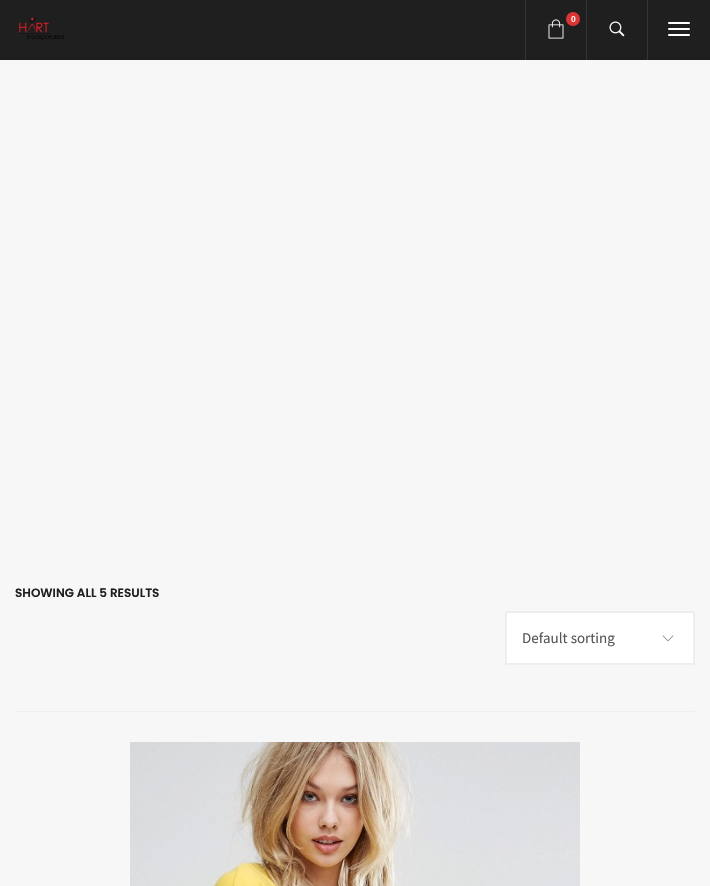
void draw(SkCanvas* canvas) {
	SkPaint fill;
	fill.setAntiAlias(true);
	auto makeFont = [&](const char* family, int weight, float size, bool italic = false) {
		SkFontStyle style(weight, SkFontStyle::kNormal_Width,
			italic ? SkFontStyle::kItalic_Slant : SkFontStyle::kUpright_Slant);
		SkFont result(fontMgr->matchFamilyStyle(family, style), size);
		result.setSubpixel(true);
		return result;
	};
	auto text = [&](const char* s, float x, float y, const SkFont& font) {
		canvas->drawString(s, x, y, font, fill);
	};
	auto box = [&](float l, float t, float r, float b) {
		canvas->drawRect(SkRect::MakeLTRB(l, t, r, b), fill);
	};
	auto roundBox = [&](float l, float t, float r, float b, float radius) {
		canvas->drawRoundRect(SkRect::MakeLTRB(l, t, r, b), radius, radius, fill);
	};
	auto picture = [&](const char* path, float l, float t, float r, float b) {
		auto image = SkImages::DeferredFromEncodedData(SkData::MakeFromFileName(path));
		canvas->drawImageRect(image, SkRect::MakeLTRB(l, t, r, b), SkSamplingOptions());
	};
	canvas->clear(0xFFF7F7F7);
	fill.setColor(0xFF1F1F1F);
	box(0, 0, 710, 59);
	fill.setColor(0xFF353535);
	box(647, 0, 648, 60);
	box(586, 0, 587, 60);
	box(525, 0, 526, 60);
	fill.setColor(0xFF1C1C1C);
	box(0, 59, 710, 60);
	fill.setColor(0xFF333333);
	box(647, 59, 648, 60);
	box(586, 59, 587, 60);
	box(525, 59, 526, 60);
	picture("image0.png", 19, 17, 64, 40);
	picture("image1.png", 548, 19, 564, 39);
	fill.setColor(0xFFDD3333);
	canvas->drawCircle(573, 19, 7, fill);
	picture("image2.png", 609, 21, 625, 37);
	fill.setColor(0xFFFFFFFF);
	roundBox(668, 28, 690, 30, 1);
	roundBox(668, 22, 690, 24, 1);
	roundBox(668, 34, 690, 36, 1);
	fill.setColor(0xFFEEEEEE);
	box(15, 711, 695, 712);
	fill.setColor(0xFFFFFFFF);
	canvas->drawRect(SkRect::MakeLTRB(506, 612, 694, 664), fill);
	fill.setStyle(SkPaint::kStroke_Style);
	fill.setStrokeWidth(2);
	fill.setColor(0xFFEEEEEE);
	canvas->drawRect(SkRect::MakeLTRB(506, 612, 694, 664), fill);
	picture("image3.png", 662, 635, 674, 642);
	picture("image4.png", 130, 742, 580, 886);
	auto font1 = makeFont("Source Sans Pro", 700, 9);
	fill.setStyle(SkPaint::kFill_Style);
	fill.setColor(0xFFFFFFFF);
	text("0", 571, 22, font1);
	auto font2 = makeFont("Poppins", 600, 12);
	fill.setColor(0xFF1F1F1F);
	text("SHOWING ALL 5 RESULTS", 15, 597, font2);
	auto font3 = makeFont("Source Sans Pro", 400, 15);
	fill.setColor(0xFF555555);
	text("Default sorting", 522, 643, font3);
}
